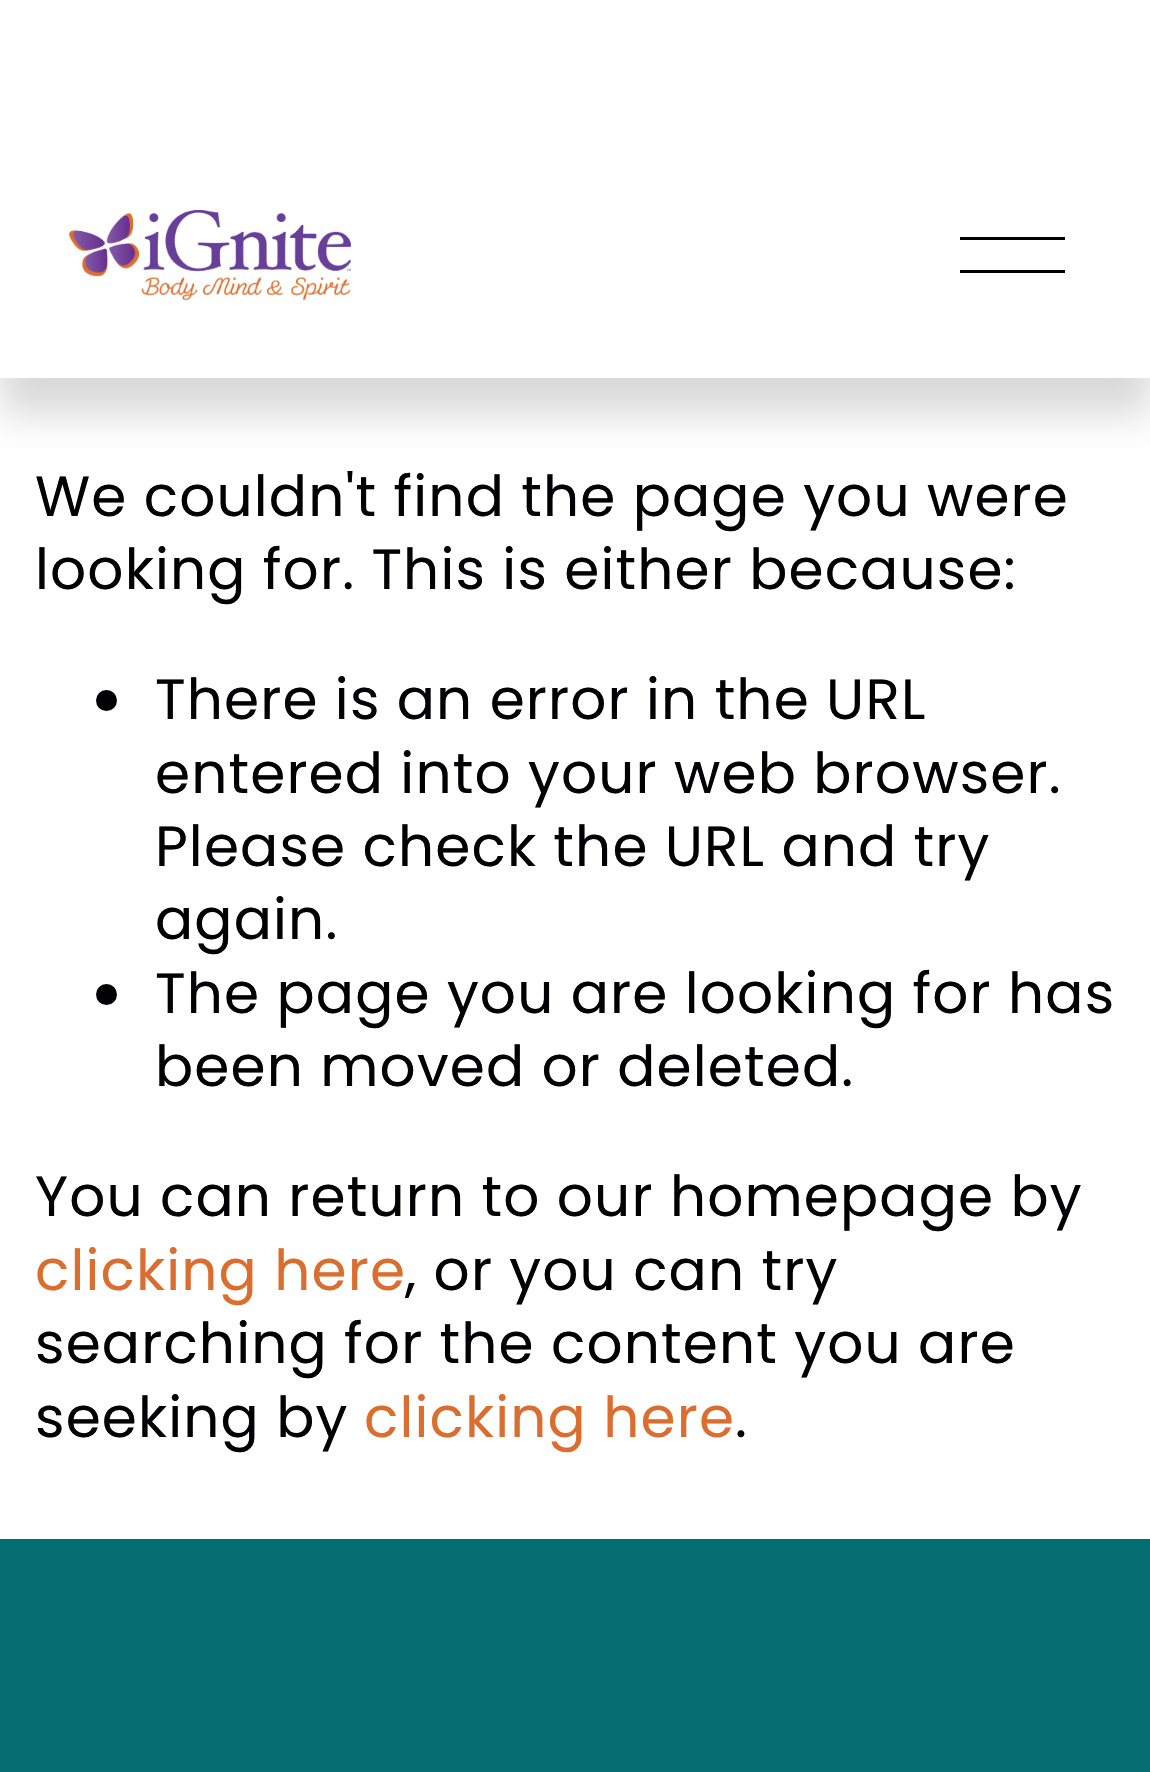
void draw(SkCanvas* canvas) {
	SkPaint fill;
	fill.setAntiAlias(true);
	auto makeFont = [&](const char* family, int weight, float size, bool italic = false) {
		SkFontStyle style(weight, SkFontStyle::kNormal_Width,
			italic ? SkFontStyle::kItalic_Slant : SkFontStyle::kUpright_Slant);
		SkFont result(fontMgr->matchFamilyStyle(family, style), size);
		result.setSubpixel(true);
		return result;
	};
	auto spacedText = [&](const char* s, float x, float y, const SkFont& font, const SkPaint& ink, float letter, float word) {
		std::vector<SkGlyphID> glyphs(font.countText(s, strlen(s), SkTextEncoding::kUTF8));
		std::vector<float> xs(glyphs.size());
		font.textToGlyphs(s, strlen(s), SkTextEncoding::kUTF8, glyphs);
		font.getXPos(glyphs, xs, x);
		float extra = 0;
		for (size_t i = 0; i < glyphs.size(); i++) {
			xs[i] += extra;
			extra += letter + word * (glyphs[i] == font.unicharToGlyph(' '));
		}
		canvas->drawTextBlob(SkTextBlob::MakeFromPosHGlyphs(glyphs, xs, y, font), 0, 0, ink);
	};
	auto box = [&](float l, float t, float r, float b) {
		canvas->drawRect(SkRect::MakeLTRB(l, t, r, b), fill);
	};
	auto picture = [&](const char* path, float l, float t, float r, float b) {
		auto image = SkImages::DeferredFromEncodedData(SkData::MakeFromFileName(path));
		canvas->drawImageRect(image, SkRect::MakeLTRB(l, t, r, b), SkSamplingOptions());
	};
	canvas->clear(0xFFFFFFFF);
	canvas->save();
	canvas->clipPath(SkPathBuilder(SkPathFillType::kEvenOdd).moveTo(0, 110).lineTo(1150, 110).lineTo(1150, 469).lineTo(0, 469).close().moveTo(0, 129).lineTo(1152, 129).lineTo(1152, 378).lineTo(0, 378).close().detach(), true);
	fill.setColor(0xFFD9D9D9);
	fill.setMaskFilter(SkMaskFilter::MakeBlur(kNormal_SkBlurStyle, 18));
	canvas->drawRect(SkRect::MakeLTRB(0, 165, 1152, 414), fill);
	fill.setMaskFilter(nullptr);
	canvas->restore();
	picture("image0.png", 69, 210, 351, 300);
	fill.setColor(0xFF010002);
	box(960, 237, 1065, 240);
	box(960, 270, 1065, 273);
	canvas->drawCircle(106.5f, 700.5f, 10.5f, fill);
	canvas->drawCircle(106.5f, 994.5f, 10.5f, fill);
	fill.setColor(0xFF046D72);
	box(0, 1539, 1150, 1772);
	auto font1 = makeFont("Poppins", 400, 56.5f);
	fill.setColor(0xFF010002);
	spacedText("We couldn't find the page you were", 35, 516, font1, fill, 1.15f, 0);
	spacedText("looking for. This is either because:", 35, 589, font1, fill, 1.15f, 0);
	spacedText("There is an error in the URL", 155, 719, font1, fill, 1.15f, 0);
	spacedText("entered into your web browser.", 155, 793, font1, fill, 1.15f, 0);
	spacedText("Please check the URL and try", 155, 866, font1, fill, 1.15f, 0);
	spacedText("again.", 155, 939, font1, fill, 1.15f, 0);
	spacedText("The page you are looking for has", 155, 1013, font1, fill, 1.15f, 0);
	spacedText("been moved or deleted.", 155, 1086, font1, fill, 1.15f, 0);
	spacedText("You can return to our homepage by", 35, 1216, font1, fill, 1.15f, 0);
	fill.setColor(0xFFDB6E2E);
	spacedText("clicking here", 35, 1290, font1, fill, 1.15f, 0);
	fill.setColor(0xFF010002);
	spacedText(", or you can try", 405, 1290, font1, fill, 1.15f, 0);
	spacedText("searching for the content you are", 35, 1363, font1, fill, 1.15f, 0);
	spacedText("seeking by", 35, 1437, font1, fill, 1.15f, 0);
	fill.setColor(0xFFDB6E2E);
	spacedText("clicking here", 364, 1437, font1, fill, 1.15f, 0);
	fill.setColor(0xFF010002);
	spacedText(".", 735, 1437, font1, fill, 1.15f, 0);
}
